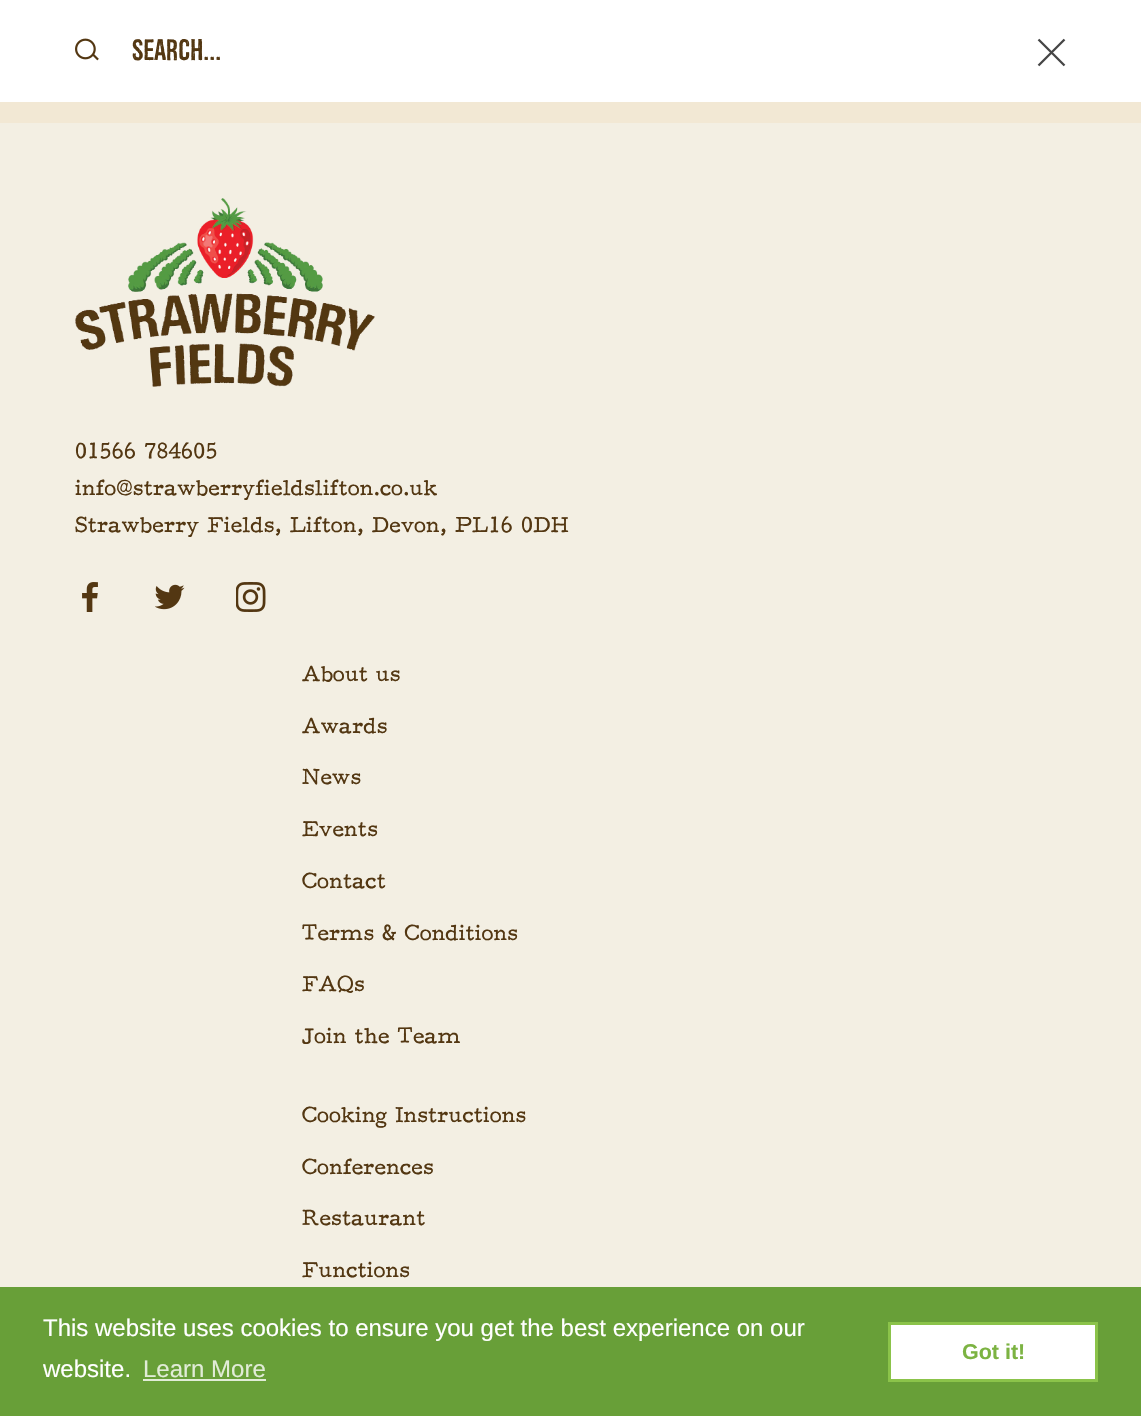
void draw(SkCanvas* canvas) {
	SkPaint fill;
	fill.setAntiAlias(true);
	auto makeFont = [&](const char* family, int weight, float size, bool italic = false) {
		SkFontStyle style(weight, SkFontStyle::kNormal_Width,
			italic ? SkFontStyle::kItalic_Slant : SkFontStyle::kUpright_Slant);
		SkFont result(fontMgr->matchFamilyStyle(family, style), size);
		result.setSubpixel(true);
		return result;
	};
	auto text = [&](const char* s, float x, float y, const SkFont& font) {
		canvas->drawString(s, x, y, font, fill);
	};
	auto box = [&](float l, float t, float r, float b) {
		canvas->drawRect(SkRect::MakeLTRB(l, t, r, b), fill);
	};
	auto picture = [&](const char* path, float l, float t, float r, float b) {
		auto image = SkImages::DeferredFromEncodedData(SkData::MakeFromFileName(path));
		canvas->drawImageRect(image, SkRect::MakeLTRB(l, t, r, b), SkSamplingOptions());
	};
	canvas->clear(0xFFF3EFE3);
	fill.setColor(0xFFFFFFFF);
	box(0, 0, 1141, 102);
	picture("image0.png", 75, 38, 99, 61);
	fill.setStyle(SkPaint::kStroke_Style);
	fill.setStrokeWidth(2.3f);
	fill.setColor(0xFF454545);
	canvas->drawPath(SkPathBuilder().moveTo(1064.5f, 39.5f).lineTo(1038.5f, 65.5f).moveTo(1064.5f, 65.5f).lineTo(1038.5f, 39.5f).detach(), fill);
	fill.setStyle(SkPaint::kFill_Style);
	fill.setColor(0xFFF2E8D4);
	box(0, 102, 1141, 123);
	picture("image1.png", 75, 198, 375, 387);
	picture("image2.png", 82, 582, 98, 612);
	picture("image3.png", 155, 584, 185, 610);
	picture("image4.png", 236, 582, 266, 612);
	fill.setColor(0xFF689F38);
	box(0, 1287, 1141, 1416);
	fill.setColor(0xFFE1ECD7);
	box(143, 1379, 266, 1381);
	fill.setColor(0xFFFFFFFF);
	canvas->drawRect(SkRect::MakeLTRB(889.5f, 1323.5f, 1096.5f, 1380.5f), fill);
	fill.setStyle(SkPaint::kStroke_Style);
	fill.setStrokeWidth(3);
	fill.setColor(0xFF8BC34A);
	canvas->drawRect(SkRect::MakeLTRB(889.5f, 1323.5f, 1096.5f, 1380.5f), fill);
	auto font1 = makeFont("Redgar", 400, 28.5f);
	fill.setStyle(SkPaint::kFill_Style);
	fill.setColor(0xFF533712);
	text("SEARCH...", 132, 60, font1);
	auto font2 = makeFont("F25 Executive", 400, 22.5f);
	text("01566 784605", 75, 458, font2);
	text("info@strawberryfieldslifton.co.uk", 75, 495, font2);
	text("Strawberry Fields, Lifton, Devon, PL16 0DH", 75, 532, font2);
	text("About us", 302, 681, font2);
	text("Awards", 302, 733, font2);
	text("News", 302, 784, font2);
	text("Events", 302, 836, font2);
	text("Contact", 302, 888, font2);
	text("Terms & Conditions", 302, 940, font2);
	text("FAQs", 302, 991, font2);
	text("Join the Team", 302, 1043, font2);
	text("Cooking Instructions", 302, 1122, font2);
	text("Conferences", 302, 1174, font2);
	text("Restaurant", 302, 1225, font2);
	text("Functions", 302, 1277, font2);
	auto font3 = makeFont("Liberation Sans", 400, 24);
	fill.setColor(0xFFFFFFFF);
	text("This website uses cookies to ensure you get the best experience on our", 43, 1336, font3);
	text("website.", 43, 1377, font3);
	fill.setColor(0xFFE1ECD7);
	text("Learn More", 143, 1377, font3);
	auto font4 = makeFont("Liberation Sans", 700, 21.5f);
	fill.setColor(0xFF7CB342);
	text("Got it!", 962, 1359, font4);
}
